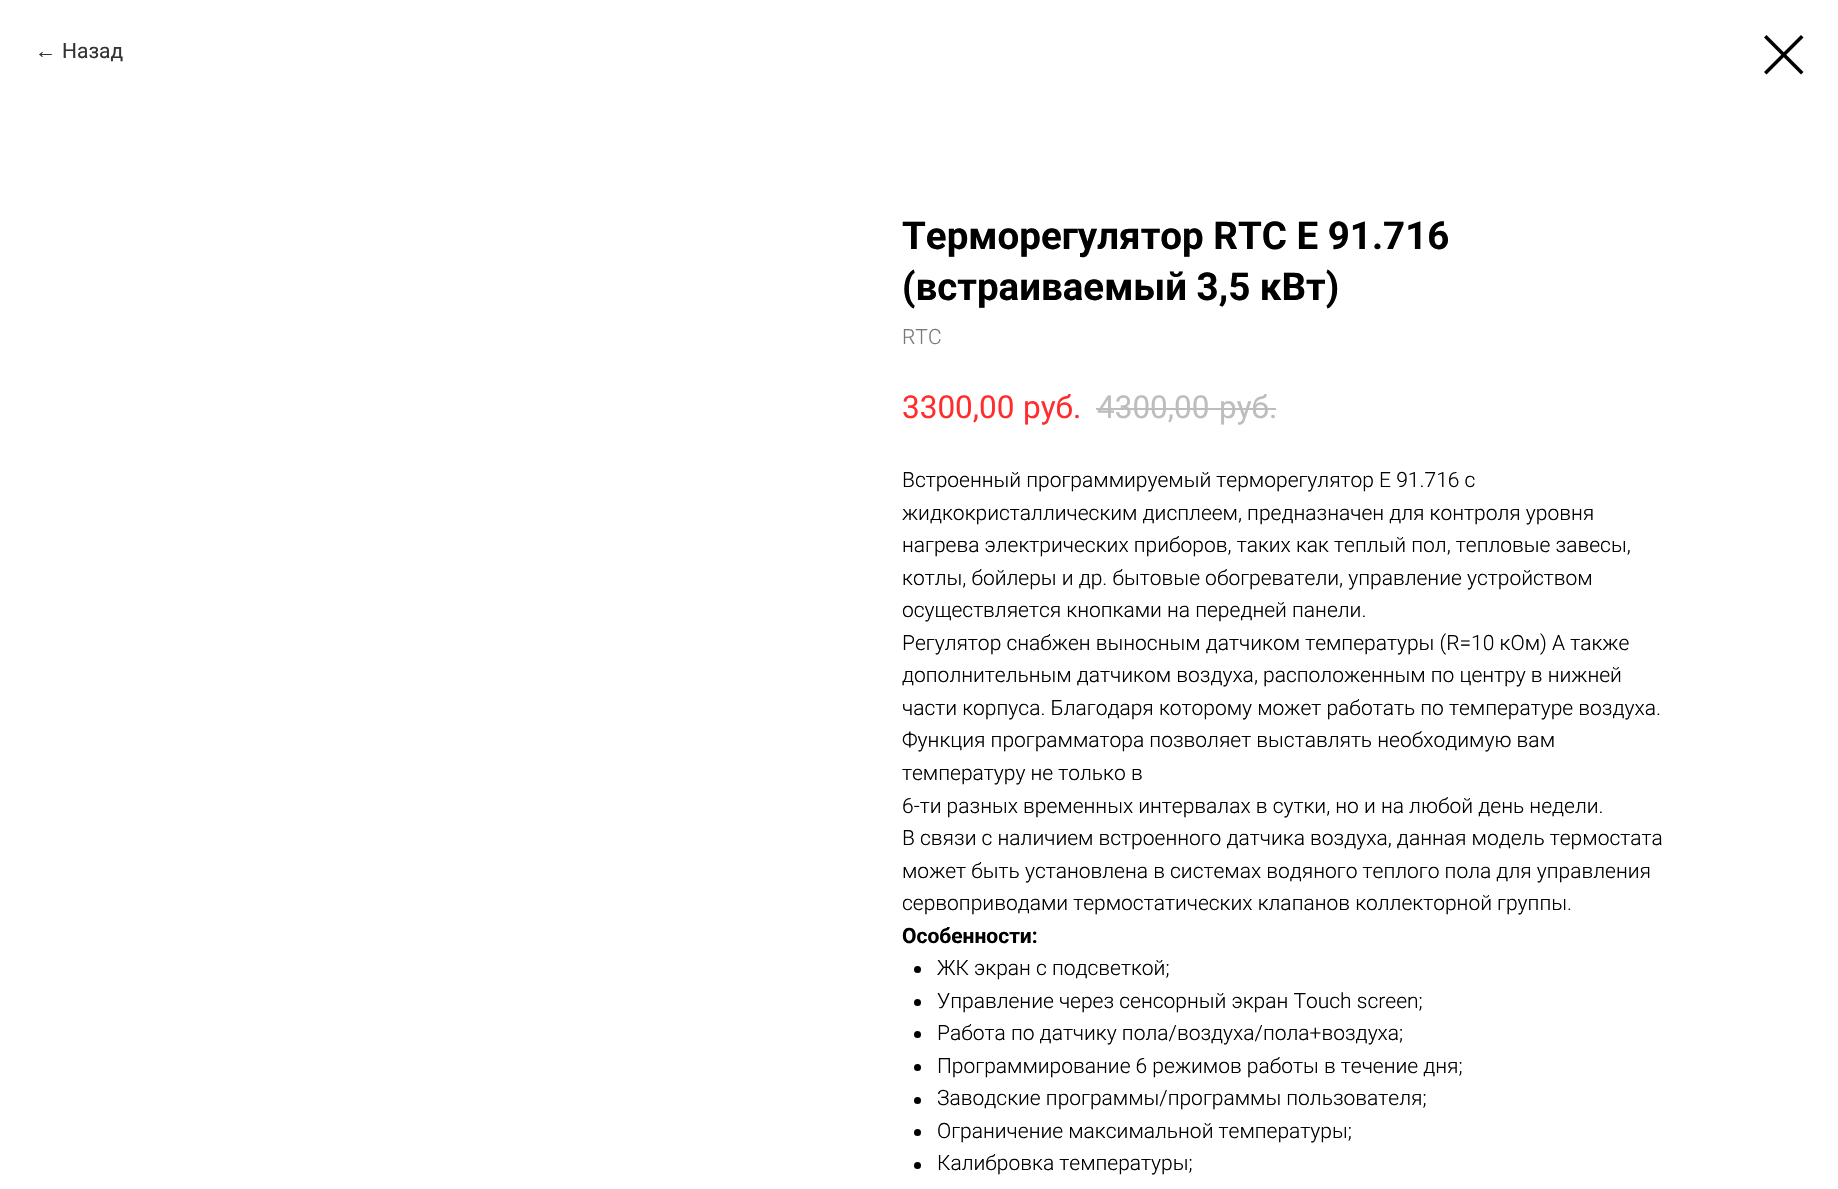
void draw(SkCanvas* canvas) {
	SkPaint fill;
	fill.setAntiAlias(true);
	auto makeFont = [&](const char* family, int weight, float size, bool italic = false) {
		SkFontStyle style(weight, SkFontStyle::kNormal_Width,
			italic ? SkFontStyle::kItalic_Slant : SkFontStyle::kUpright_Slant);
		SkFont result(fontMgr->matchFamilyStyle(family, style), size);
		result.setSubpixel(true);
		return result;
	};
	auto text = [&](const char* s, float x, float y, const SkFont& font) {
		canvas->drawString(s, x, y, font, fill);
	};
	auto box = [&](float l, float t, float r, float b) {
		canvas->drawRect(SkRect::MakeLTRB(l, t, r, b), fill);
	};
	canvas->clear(0xFFFFFFFF);
	fill.setColor(0xFF000000);
	canvas->drawPath(SkPathBuilder(SkPathFillType::kEvenOdd).moveTo(1764, 37.5f).lineTo(1766.5f, 35).lineTo(1803.5f, 72).lineTo(1801, 74.5f).close().detach(), fill);
	canvas->drawPath(SkPathBuilder(SkPathFillType::kEvenOdd).moveTo(1801, 35).lineTo(1803.5f, 37.5f).lineTo(1766.5f, 74.5f).lineTo(1764, 72).close().detach(), fill);
	fill.setColor(0xFFBDBDBD);
	box(1096, 408, 1276, 410);
	fill.setColor(0xFF000000);
	canvas->drawCircle(917.5f, 969.5f, 3.5f, fill);
	canvas->drawCircle(917.5f, 1002.5f, 3.5f, fill);
	canvas->drawCircle(917.5f, 1034.5f, 3.5f, fill);
	canvas->drawCircle(917.5f, 1067.5f, 3.5f, fill);
	canvas->drawCircle(917.5f, 1100.5f, 3.5f, fill);
	canvas->drawCircle(917.5f, 1132.5f, 3.5f, fill);
	canvas->drawCircle(917.5f, 1165.5f, 3.5f, fill);
	auto font1 = makeFont("Liberation Sans", 400, 21);
	fill.setColor(0xFF333333);
	text("←", 35, 58, font1);
	auto font2 = makeFont("Roboto", 400, 21);
	text("Назад", 62, 58, font2);
	auto font3 = makeFont("Roboto", 700, 38.5f);
	fill.setColor(0xFF000000);
	text("Терморегулятор RTC Е 91.716", 902, 249, font3);
	text("(встраиваемый 3,5 кВт)", 902, 300, font3);
	auto font4 = makeFont("Roboto", 300, 21);
	fill.setColor(0xFF777777);
	text("RTC", 902, 344, font4);
	auto font5 = makeFont("Roboto", 400, 31.5f);
	fill.setColor(0xFFFF2E2E);
	text("3300,00", 902, 418, font5);
	text("руб.", 1023, 418, font5);
	fill.setColor(0xFFBDBDBD);
	text("4300,00", 1097, 418, font5);
	text("руб.", 1219, 418, font5);
	fill.setColor(0xFF000000);
	text("Встроенный программируемый терморегулятор E 91.716 с", 902, 487, font4);
	text("жидкокристаллическим дисплеем, предназначен для контроля уровня", 902, 520, font4);
	text("нагрева электрических приборов, таких как теплый пол, тепловые завесы,", 902, 552, font4);
	text("котлы, бойлеры и др. бытовые обогреватели, управление устройством", 902, 585, font4);
	text("осуществляется кнопками на передней панели.", 902, 617, font4);
	text("Регулятор снабжен выносным датчиком температуры (R=10 кОм) А также", 902, 650, font4);
	text("дополнительным датчиком воздуха, расположенным по центру в нижней", 902, 682, font4);
	text("части корпуса. Благодаря которому может работать по температуре воздуха.", 902, 715, font4);
	text("Функция программатора позволяет выставлять необходимую вам", 902, 747, font4);
	text("температуру не только в", 902, 780, font4);
	text("6-ти разных временных интервалах в сутки, но и на любой день недели.", 902, 813, font4);
	text("В связи с наличием встроенного датчика воздуха, данная модель термостата", 902, 845, font4);
	text("может быть установлена в системах водяного теплого пола для управления", 902, 878, font4);
	text("сервоприводами термостатических клапанов коллекторной группы.", 902, 910, font4);
	auto font6 = makeFont("Roboto", 700, 21);
	text("Особенности:", 902, 943, font6);
	text("ЖК экран с подсветкой;", 937, 975, font4);
	text("Управление через сенсорный экран Touch screen;", 937, 1008, font4);
	text("Работа по датчику пола/воздуха/пола+воздуха;", 937, 1040, font4);
	text("Программирование 6 режимов работы в течение дня;", 937, 1073, font4);
	text("Заводские программы/программы пользователя;", 937, 1105, font4);
	text("Ограничение максимальной температуры;", 937, 1138, font4);
	text("Калибровка температуры;", 937, 1170, font4);
}
